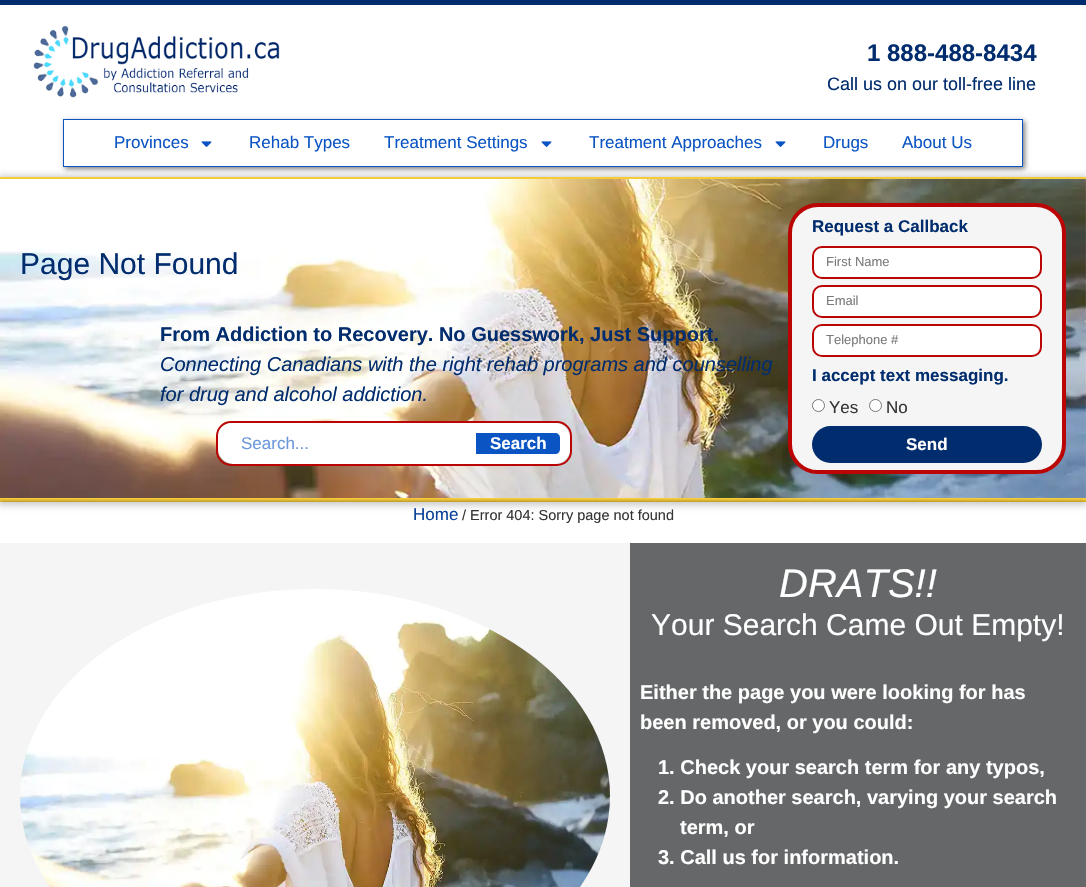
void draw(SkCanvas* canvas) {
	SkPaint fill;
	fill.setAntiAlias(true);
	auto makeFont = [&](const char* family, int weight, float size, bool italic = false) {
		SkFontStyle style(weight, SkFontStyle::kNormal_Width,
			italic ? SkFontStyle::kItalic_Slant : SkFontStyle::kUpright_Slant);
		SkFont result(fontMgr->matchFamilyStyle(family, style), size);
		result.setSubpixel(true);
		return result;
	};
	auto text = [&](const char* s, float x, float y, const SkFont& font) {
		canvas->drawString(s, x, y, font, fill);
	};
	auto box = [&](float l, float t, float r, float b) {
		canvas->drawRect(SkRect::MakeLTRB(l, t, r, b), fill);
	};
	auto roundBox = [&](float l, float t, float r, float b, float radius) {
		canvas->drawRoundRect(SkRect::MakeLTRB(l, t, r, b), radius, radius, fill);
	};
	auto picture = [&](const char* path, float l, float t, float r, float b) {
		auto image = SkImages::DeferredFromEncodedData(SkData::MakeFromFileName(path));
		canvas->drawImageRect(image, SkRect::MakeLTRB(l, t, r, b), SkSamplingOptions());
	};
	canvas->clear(0xFFFFFFFF);
	fill.setColor(0xFF012C6D);
	box(0, 0, 1086, 5);
	picture("image0.png", 33, 25, 280, 98);
	canvas->save();
	canvas->clipPath(SkPathBuilder(SkPathFillType::kEvenOdd).moveTo(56, 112).lineTo(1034, 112).lineTo(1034, 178).lineTo(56, 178).close().moveTo(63, 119).lineTo(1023, 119).lineTo(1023, 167).lineTo(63, 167).close().detach(), true);
	fill.setColor(0x80000000);
	fill.setMaskFilter(SkMaskFilter::MakeBlur(kNormal_SkBlurStyle, 2.5f));
	canvas->drawRect(SkRect::MakeLTRB(65, 121, 1025, 169), fill);
	fill.setMaskFilter(nullptr);
	canvas->restore();
	fill.setStyle(SkPaint::kStroke_Style);
	fill.setStrokeWidth(1);
	fill.setColor(0xFF0A54C3);
	canvas->drawRect(SkRect::MakeLTRB(63.5f, 119.5f, 1022.5f, 166.5f), fill);
	picture("image1.png", 201, 141, 212, 147);
	picture("image1.png", 541, 141, 552, 147);
	picture("image1.png", 775, 141, 786, 147);
	canvas->save();
	canvas->clipPath(SkPathBuilder(SkPathFillType::kEvenOdd).moveTo(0, 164).lineTo(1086, 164).lineTo(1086, 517).lineTo(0, 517).close().moveTo(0, 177).lineTo(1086, 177).lineTo(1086, 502).lineTo(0, 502).close().detach(), true);
	fill.setStyle(SkPaint::kFill_Style);
	fill.setColor(0x38000000);
	fill.setMaskFilter(SkMaskFilter::MakeBlur(kNormal_SkBlurStyle, 3.5f));
	canvas->drawRect(SkRect::MakeLTRB(-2, 176, 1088, 505), fill);
	fill.setMaskFilter(nullptr);
	canvas->restore();
	picture("image2.png", 0, 179, 1086, 498);
	fill.setColor(0xFFF6CB38);
	box(0, 177, 1086, 179);
	box(0, 498, 1086, 502);
	fill.setStyle(SkPaint::kStroke_Style);
	fill.setStrokeWidth(2);
	fill.setColor(0xFFBB0404);
	canvas->drawRoundRect(SkRect::MakeLTRB(217, 422, 571, 465), 14, 14, fill);
	fill.setStyle(SkPaint::kFill_Style);
	fill.setColor(0xFFFFFFFF);
	roundBox(218, 423, 570, 464, 15);
	fill.setColor(0xFF0A54C3);
	canvas->drawPath(SkPathBuilder().moveTo(476, 433).lineTo(555, 433).cubicTo(558, 433, 560, 435, 560, 438).lineTo(560, 449).cubicTo(560, 452, 558, 454, 555, 454).lineTo(476, 454).close().detach(), fill);
	fill.setColor(0xFFF4F5F4);
	canvas->drawRoundRect(SkRect::MakeLTRB(790, 205, 1064, 472), 28, 28, fill);
	fill.setStyle(SkPaint::kStroke_Style);
	fill.setStrokeWidth(4);
	fill.setColor(0xFFBB0404);
	canvas->drawRoundRect(SkRect::MakeLTRB(790, 205, 1064, 472), 28, 28, fill);
	fill.setStyle(SkPaint::kFill_Style);
	fill.setColor(0xFFFFFFFF);
	canvas->drawRoundRect(SkRect::MakeLTRB(813, 247, 1041, 278), 9, 9, fill);
	fill.setStyle(SkPaint::kStroke_Style);
	fill.setStrokeWidth(2);
	fill.setColor(0xFFBB0404);
	canvas->drawRoundRect(SkRect::MakeLTRB(813, 247, 1041, 278), 9, 9, fill);
	fill.setStyle(SkPaint::kFill_Style);
	fill.setColor(0xFFFFFFFF);
	canvas->drawRoundRect(SkRect::MakeLTRB(813, 286, 1041, 317), 9, 9, fill);
	fill.setStyle(SkPaint::kStroke_Style);
	fill.setColor(0xFFBB0404);
	canvas->drawRoundRect(SkRect::MakeLTRB(813, 286, 1041, 317), 9, 9, fill);
	fill.setStyle(SkPaint::kFill_Style);
	fill.setColor(0xFFFFFFFF);
	canvas->drawRoundRect(SkRect::MakeLTRB(813, 325, 1041, 356), 9, 9, fill);
	fill.setStyle(SkPaint::kStroke_Style);
	fill.setColor(0xFFBB0404);
	canvas->drawRoundRect(SkRect::MakeLTRB(813, 325, 1041, 356), 9, 9, fill);
	fill.setStyle(SkPaint::kFill_Style);
	fill.setColor(0xFFFFFFFF);
	canvas->drawCircle(818.5f, 405.5f, 6, fill);
	fill.setStyle(SkPaint::kStroke_Style);
	fill.setStrokeWidth(1);
	fill.setColor(0xFF767676);
	canvas->drawCircle(818.5f, 405.5f, 6, fill);
	fill.setStyle(SkPaint::kFill_Style);
	fill.setColor(0xFFFFFFFF);
	canvas->drawCircle(875.5f, 405.5f, 6, fill);
	fill.setStyle(SkPaint::kStroke_Style);
	fill.setColor(0xFF767676);
	canvas->drawCircle(875.5f, 405.5f, 6, fill);
	fill.setStyle(SkPaint::kFill_Style);
	fill.setColor(0xFF012C6D);
	roundBox(812, 426, 1042, 463, 18.5f);
	canvas->save();
	canvas->clipRect(SkRect::MakeLTRB(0, 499, 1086, 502));
	fill.setColor(0x80000000);
	fill.setMaskFilter(SkMaskFilter::MakeBlur(kNormal_SkBlurStyle, 2));
	canvas->drawRect(SkRect::MakeLTRB(0, 502, 1086, 543), fill);
	fill.setMaskFilter(nullptr);
	canvas->restore();
	fill.setColor(0xFFF4F5F4);
	box(0, 543, 630, 887);
	picture("image3.png", 20, 589, 610, 887);
	fill.setColor(0xFF656769);
	box(630, 543, 1086, 887);
	auto font1 = makeFont("Liberation Sans", 700, 24);
	fill.setColor(0xFF012C6D);
	text("1 888-488-8434", 867, 61, font1);
	auto font2 = makeFont("Liberation Sans", 400, 18);
	text("Call us on our toll-free line", 827, 90, font2);
	auto font3 = makeFont("Liberation Sans", 400, 17);
	fill.setColor(0xFF0A54C3);
	text("Provinces", 114, 148, font3);
	text("Rehab Types", 249, 148, font3);
	text("Treatment Settings", 384, 148, font3);
	text("Treatment Approaches", 589, 148, font3);
	text("Drugs", 823, 148, font3);
	text("About Us", 902, 148, font3);
	auto font4 = makeFont("Liberation Sans", 400, 30);
	fill.setColor(0xFF012C6D);
	text("Page Not Found", 20, 274, font4);
	auto font5 = makeFont("Liberation Sans", 700, 20);
	text("From Addiction to Recovery. No Guesswork, Just Support.", 160, 341, font5);
	auto font6 = makeFont("Liberation Sans", 400, 20, true);
	text("Connecting Canadians with the right rehab programs and counselling", 160, 371, font6);
	text("for drug and alcohol addiction.", 160, 401, font6);
	fill.setColor(0xFF6C98DB);
	text("Search...", 241, 449, font3);
	auto font7 = makeFont("Liberation Sans", 700, 17);
	fill.setColor(0xFFFFFFFF);
	text("Search", 490, 449, font7);
	fill.setColor(0xFF012C6D);
	text("Request a Callback", 812, 232, font7);
	auto font8 = makeFont("Liberation Sans", 400, 13);
	fill.setColor(0xFF797A7C);
	text("First Name", 826, 266, font8);
	text("Email", 826, 305, font8);
	text("Telephone #", 826, 344, font8);
	fill.setColor(0xFF012C6D);
	text("I accept text messaging.", 812, 381, font7);
	fill.setColor(0xFF363333);
	text("Yes", 829, 413, font3);
	text("No", 886, 413, font3);
	fill.setColor(0xFFFFFFFF);
	text("Send", 906, 450, font7);
	fill.setColor(0xFF084299);
	text("Home", 413, 520, font3);
	auto font9 = makeFont("Liberation Sans", 400, 14.5f);
	fill.setColor(0xFF363333);
	text("/ Error 404: Sorry page not found", 462, 520, font9);
	auto font10 = makeFont("Liberation Sans", 400, 40, true);
	fill.setColor(0xFFFFFFFF);
	text("DRATS!!", 779, 597, font10);
	text("Your Search Came Out Empty!", 651, 635, font4);
	text("Either the page you were looking for has", 640, 699, font5);
	text("been removed, or you could:", 640, 729, font5);
	text("1. Check your search term for any typos,", 658, 774, font5);
	text("2. Do another search, varying your search", 658, 804, font5);
	text("term, or", 680, 834, font5);
	text("3. Call us for information.", 658, 864, font5);
}
